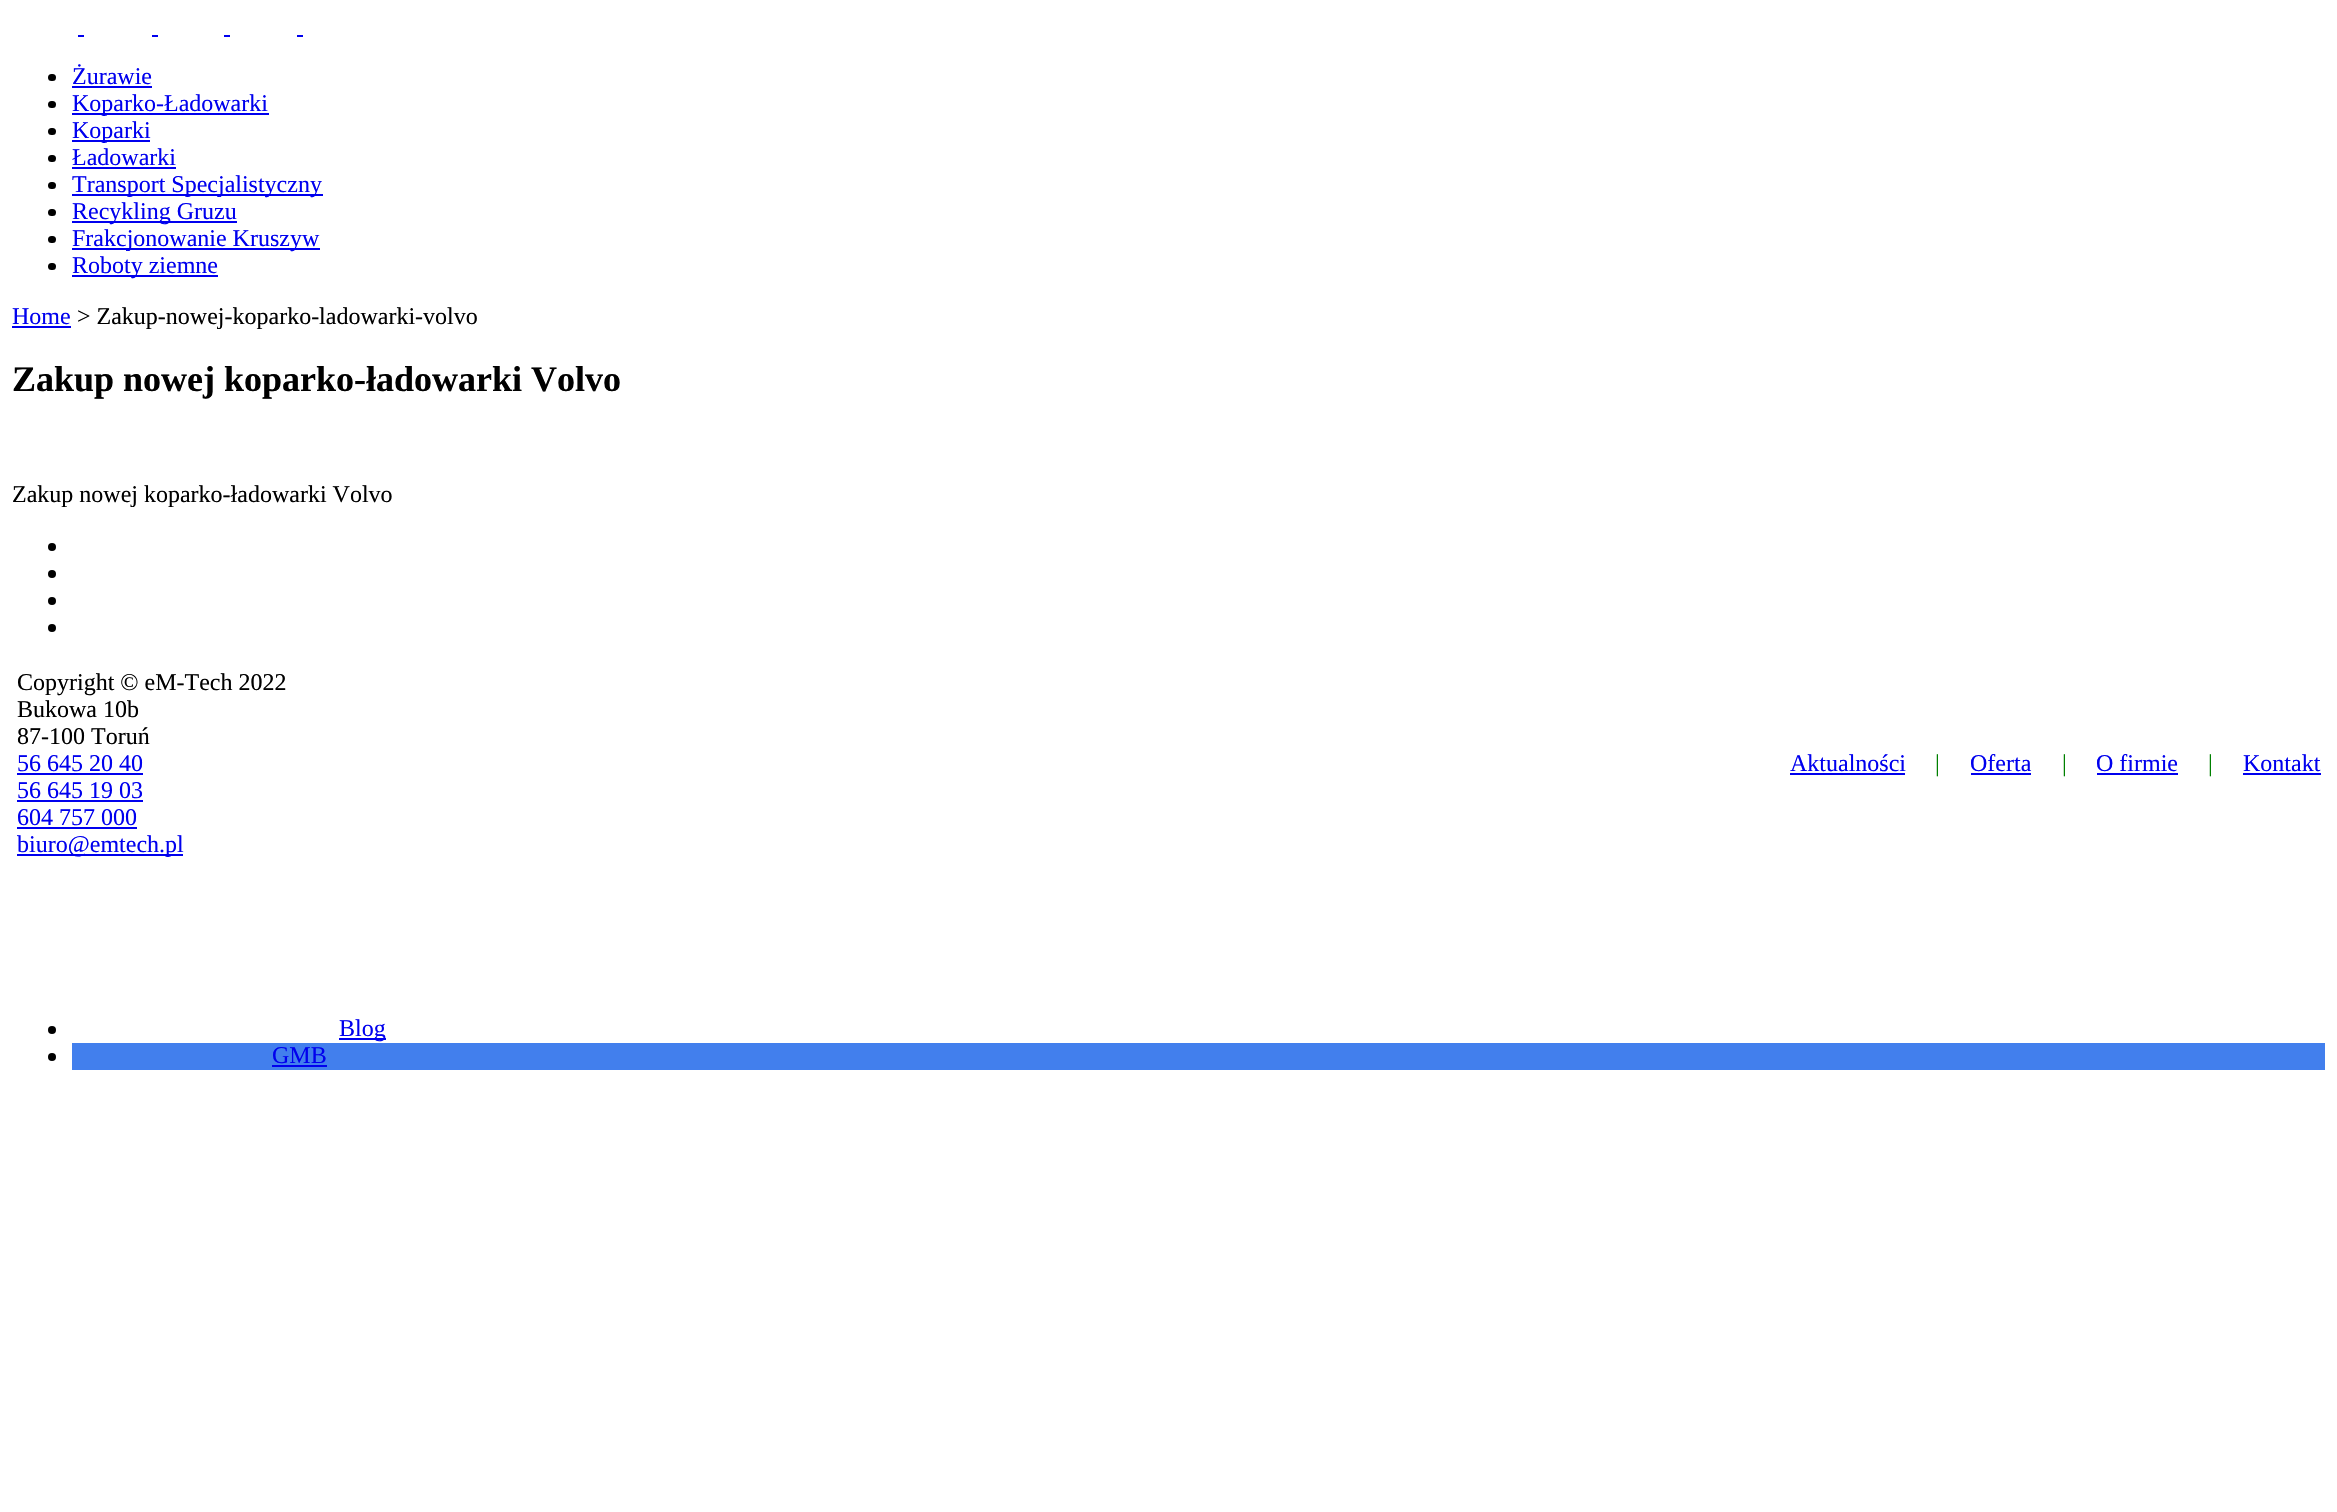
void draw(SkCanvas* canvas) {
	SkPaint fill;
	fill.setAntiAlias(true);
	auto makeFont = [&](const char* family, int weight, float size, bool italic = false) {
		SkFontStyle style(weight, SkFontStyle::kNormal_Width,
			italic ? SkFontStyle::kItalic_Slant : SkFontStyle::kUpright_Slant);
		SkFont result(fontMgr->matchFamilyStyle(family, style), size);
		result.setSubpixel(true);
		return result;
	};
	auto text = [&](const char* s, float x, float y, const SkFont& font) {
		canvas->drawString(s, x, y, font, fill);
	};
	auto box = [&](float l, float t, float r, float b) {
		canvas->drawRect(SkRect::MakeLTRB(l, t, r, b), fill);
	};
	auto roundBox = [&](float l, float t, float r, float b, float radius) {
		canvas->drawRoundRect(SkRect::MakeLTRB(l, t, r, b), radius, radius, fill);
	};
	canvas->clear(0xFFFFFFFF);
	fill.setColor(0xFF0000EE);
	box(78, 35, 84, 37);
	box(152, 35, 158, 37);
	box(224, 35, 230, 37);
	box(297, 35, 303, 37);
	fill.setColor(0xFF000000);
	roundBox(48, 74, 56, 81, 3.5f);
	fill.setColor(0xFF0000EE);
	box(72, 86, 152, 88);
	fill.setColor(0xFF000000);
	roundBox(48, 101, 56, 108, 3.5f);
	fill.setColor(0xFF0000EE);
	box(72, 113, 269, 115);
	fill.setColor(0xFF000000);
	roundBox(48, 128, 56, 135, 3.5f);
	fill.setColor(0xFF0000EE);
	box(72, 140, 150, 142);
	fill.setColor(0xFF000000);
	roundBox(48, 155, 56, 162, 3.5f);
	fill.setColor(0xFF0000EE);
	box(72, 167, 176, 169);
	fill.setColor(0xFF000000);
	roundBox(48, 182, 56, 189, 3.5f);
	fill.setColor(0xFF0000EE);
	box(72, 194, 323, 196);
	fill.setColor(0xFF000000);
	roundBox(48, 209, 56, 216, 3.5f);
	fill.setColor(0xFF0000EE);
	box(72, 221, 237, 223);
	fill.setColor(0xFF000000);
	roundBox(48, 236, 56, 243, 3.5f);
	fill.setColor(0xFF0000EE);
	box(72, 248, 320, 250);
	fill.setColor(0xFF000000);
	roundBox(48, 263, 56, 270, 3.5f);
	fill.setColor(0xFF0000EE);
	box(72, 275, 218, 277);
	box(12, 326, 71, 328);
	fill.setColor(0xFF000000);
	canvas->drawCircle(52, 547, 4, fill);
	canvas->drawCircle(52, 574, 4, fill);
	canvas->drawCircle(52, 601, 4, fill);
	canvas->drawCircle(52, 628, 4, fill);
	fill.setColor(0xFF0000EE);
	box(17, 773, 143, 775);
	box(17, 800, 143, 802);
	box(17, 827, 137, 829);
	box(17, 854, 183, 856);
	box(1790, 773, 1905, 775);
	box(1971, 773, 2031, 775);
	box(2097, 773, 2178, 775);
	box(2243, 773, 2321, 775);
	fill.setColor(0xFF000000);
	canvas->drawCircle(52, 1030, 4, fill);
	fill.setColor(0xFF0000EE);
	box(339, 1038, 386, 1040);
	fill.setColor(0xFF427FED);
	box(72, 1043, 2325, 1070);
	fill.setColor(0xFF000000);
	canvas->drawCircle(52, 1057, 4, fill);
	fill.setColor(0xFF0000EE);
	box(272, 1065, 327, 1067);
	auto font1 = makeFont("Liberation Serif", 400, 24);
	text("Żurawie", 72, 84, font1);
	text("Koparko-Ładowarki", 72, 111, font1);
	text("Koparki", 72, 138, font1);
	text("Ładowarki", 72, 165, font1);
	text("Transport Specjalistyczny", 72, 192, font1);
	text("Recykling Gruzu", 72, 219, font1);
	text("Frakcjonowanie Kruszyw", 72, 246, font1);
	text("Roboty ziemne", 72, 273, font1);
	text("Home", 12, 324, font1);
	fill.setColor(0xFF000000);
	text("> Zakup-nowej-koparko-ladowarki-volvo", 77, 324, font1);
	auto font2 = makeFont("Liberation Serif", 700, 36);
	text("Zakup nowej koparko-ładowarki Volvo", 12, 391, font2);
	text("Zakup nowej koparko-ładowarki Volvo", 12, 502, font1);
	text("Copyright © eM-Tech 2022", 17, 690, font1);
	text("Bukowa 10b", 17, 717, font1);
	text("87-100 Toruń", 17, 744, font1);
	fill.setColor(0xFF0000EE);
	text("56 645 20 40", 17, 771, font1);
	text("56 645 19 03", 17, 798, font1);
	text("604 757 000", 17, 825, font1);
	text("biuro@emtech.pl", 17, 852, font1);
	text("Aktualności", 1790, 771, font1);
	fill.setColor(0xFF008000);
	text("|", 1935, 771, font1);
	fill.setColor(0xFF0000EE);
	text("Oferta", 1970, 771, font1);
	fill.setColor(0xFF008000);
	text("|", 2062, 771, font1);
	fill.setColor(0xFF0000EE);
	text("O firmie", 2096, 771, font1);
	fill.setColor(0xFF008000);
	text("|", 2208, 771, font1);
	fill.setColor(0xFF0000EE);
	text("Kontakt", 2243, 771, font1);
	text("Blog", 339, 1036, font1);
	text("GMB", 272, 1063, font1);
}
